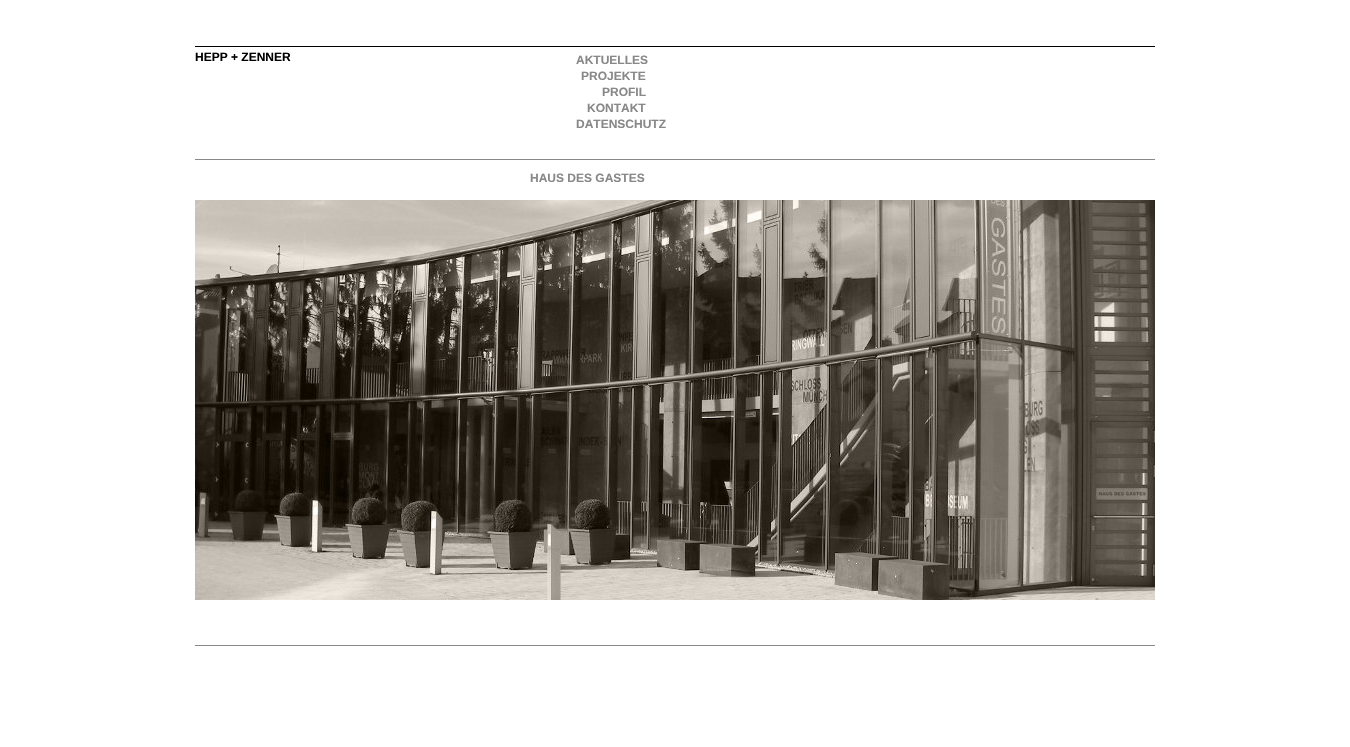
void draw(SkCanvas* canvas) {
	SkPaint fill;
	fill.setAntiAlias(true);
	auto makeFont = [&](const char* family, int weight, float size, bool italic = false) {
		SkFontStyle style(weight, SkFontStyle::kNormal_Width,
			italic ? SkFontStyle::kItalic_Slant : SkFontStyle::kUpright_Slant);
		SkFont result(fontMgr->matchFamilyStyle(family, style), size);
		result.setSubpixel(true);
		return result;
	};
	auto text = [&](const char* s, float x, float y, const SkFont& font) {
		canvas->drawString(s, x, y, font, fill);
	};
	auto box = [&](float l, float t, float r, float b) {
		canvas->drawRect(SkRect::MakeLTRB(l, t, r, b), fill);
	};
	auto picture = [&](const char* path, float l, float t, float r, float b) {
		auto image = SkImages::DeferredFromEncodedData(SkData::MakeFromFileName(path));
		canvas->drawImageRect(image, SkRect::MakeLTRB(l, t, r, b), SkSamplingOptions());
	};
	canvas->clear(0xFFFFFFFF);
	fill.setColor(0xFF000000);
	box(195, 46, 1155, 47);
	fill.setColor(0xFF888888);
	box(195, 159, 1155, 160);
	box(195, 645, 1155, 646);
	picture("image0.png", 195, 200, 1155, 600);
	auto font1 = makeFont("Liberation Sans", 700, 12);
	fill.setColor(0xFF000000);
	text("HEPP + ZENNER", 195, 61, font1);
	fill.setColor(0xFF888888);
	text("AKTUELLES", 576, 64, font1);
	text("PROJEKTE", 581, 80, font1);
	text("PROFIL", 602, 96, font1);
	text("KONTAKT", 587, 112, font1);
	text("DATENSCHUTZ", 576, 128, font1);
	text("HAUS DES GASTES", 530, 182, font1);
}
